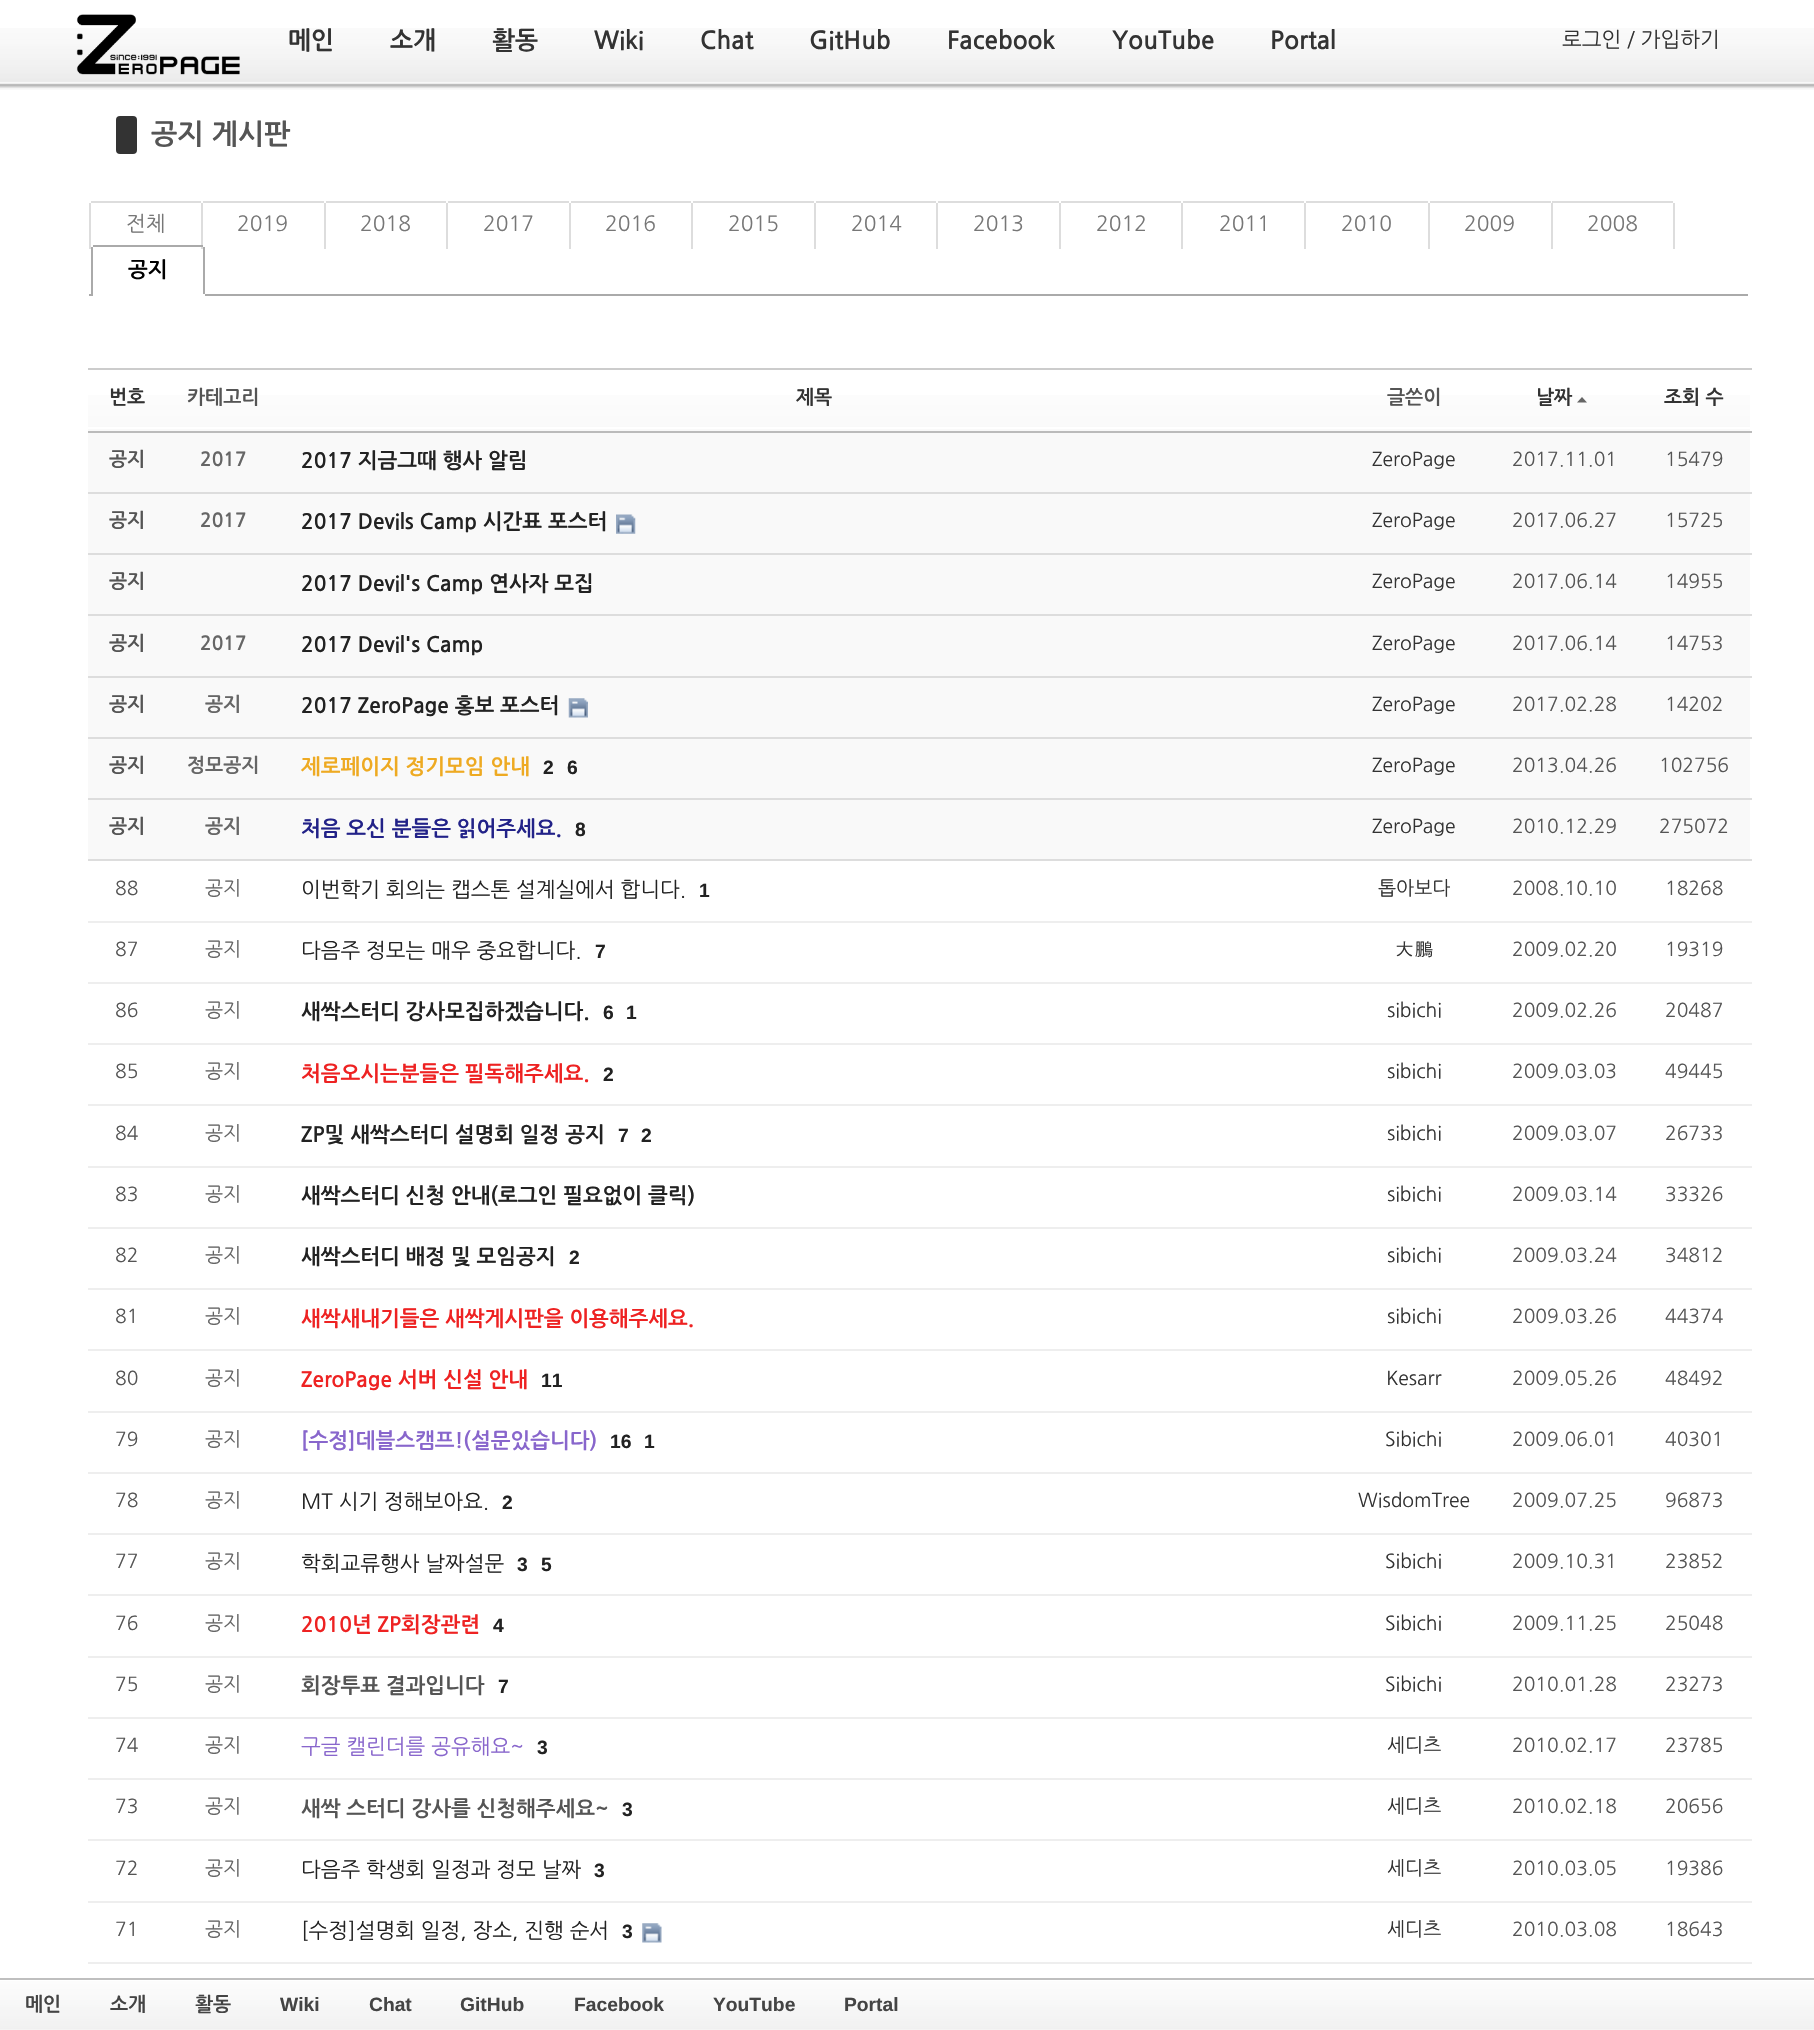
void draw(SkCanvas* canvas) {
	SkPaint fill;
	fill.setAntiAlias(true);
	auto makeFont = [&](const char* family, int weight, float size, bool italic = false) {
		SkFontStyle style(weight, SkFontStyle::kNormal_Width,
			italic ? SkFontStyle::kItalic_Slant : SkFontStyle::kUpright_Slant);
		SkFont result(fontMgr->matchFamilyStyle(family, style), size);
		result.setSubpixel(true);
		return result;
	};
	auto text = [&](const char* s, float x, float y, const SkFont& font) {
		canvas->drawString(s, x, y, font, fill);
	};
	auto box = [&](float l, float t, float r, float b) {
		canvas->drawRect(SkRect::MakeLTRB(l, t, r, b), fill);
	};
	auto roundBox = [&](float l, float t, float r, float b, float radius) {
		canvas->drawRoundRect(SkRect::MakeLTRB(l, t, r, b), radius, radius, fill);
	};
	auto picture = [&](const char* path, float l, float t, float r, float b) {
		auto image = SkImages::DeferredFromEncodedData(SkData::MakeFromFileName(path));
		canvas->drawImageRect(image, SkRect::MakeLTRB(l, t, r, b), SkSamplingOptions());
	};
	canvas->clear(0xFFFFFFFF);
	picture("image0.png", 0, 28, 1814, 90);
	picture("image1.png", 76, 14, 240, 75);
	fill.setColor(0xFF333333);
	roundBox(116, 116, 137, 154, 4);
	fill.setColor(0xFFAAAAAA);
	box(89, 294, 1748, 296);
	fill.setColor(0xFFDDDDDD);
	box(89, 203, 91, 249);
	box(91, 201, 201, 203);
	box(201, 203, 203, 249);
	box(203, 201, 324, 203);
	box(324, 203, 326, 249);
	box(326, 201, 446, 203);
	box(446, 203, 448, 249);
	box(448, 201, 569, 203);
	box(569, 203, 571, 249);
	box(571, 201, 691, 203);
	box(691, 203, 693, 249);
	box(693, 201, 814, 203);
	box(814, 203, 816, 249);
	box(816, 201, 936, 203);
	box(936, 203, 938, 249);
	box(938, 201, 1059, 203);
	box(1059, 203, 1061, 249);
	box(1061, 201, 1181, 203);
	box(1181, 203, 1183, 249);
	box(1183, 201, 1304, 203);
	box(1304, 203, 1306, 249);
	box(1306, 201, 1428, 203);
	box(1428, 203, 1430, 249);
	box(1430, 201, 1551, 203);
	box(1673, 203, 1675, 249);
	box(1551, 203, 1553, 249);
	box(1552, 201, 1673, 203);
	fill.setColor(0xFFAAAAAA);
	box(203, 247, 205, 296);
	fill.setColor(0xFFFFFFFF);
	box(91, 294, 205, 296);
	fill.setColor(0xFFAAAAAA);
	box(91, 247, 93, 296);
	box(93, 245, 203, 247);
	{
		const SkColor colors[] = {0xFFFFFFFF, 0xFFF9F9F9};
		const float stops[] = {0, 1};
		const SkPoint ends[] = {{919, 369}, {919, 431}};
		fill.setShader(SkGradientShader::MakeLinear(ends, colors, stops, 2, SkTileMode::kClamp));
		fill.setAlpha(255);
	}
	box(88, 395, 1750, 431);
	fill.setShader(nullptr);
	fill.setColor(0xFFFFFFFF);
	box(88, 427, 1750, 429);
	fill.setColor(0xFF666666);
	canvas->drawPath(SkPathBuilder().moveTo(1587, 402.5f).lineTo(1577, 402.5f).lineTo(1582, 397).close().detach(), fill);
	fill.setColor(0xFFCCCCCC);
	box(88, 368, 1752, 370);
	fill.setColor(0xFFBBBBBB);
	box(88, 431, 1752, 433);
	fill.setColor(0xFFF9F9F9);
	box(88, 433, 1750, 492);
	fill.setColor(0xFFDDDDDD);
	box(88, 492, 1752, 494);
	fill.setColor(0xFFF9F9F9);
	box(88, 494, 1750, 553);
	picture("image2.png", 616, 514, 636, 534);
	fill.setColor(0xFFDDDDDD);
	box(88, 553, 1752, 555);
	fill.setColor(0xFFF9F9F9);
	box(88, 555, 1750, 614);
	fill.setColor(0xFFDDDDDD);
	box(88, 614, 1752, 616);
	fill.setColor(0xFFF9F9F9);
	box(88, 616, 1750, 676);
	fill.setColor(0xFFDDDDDD);
	box(88, 676, 1752, 678);
	fill.setColor(0xFFF9F9F9);
	box(88, 678, 1750, 737);
	picture("image3.png", 568, 698, 588, 718);
	fill.setColor(0xFFDDDDDD);
	box(88, 737, 1752, 739);
	fill.setColor(0xFFF9F9F9);
	box(88, 739, 1750, 798);
	fill.setColor(0xFFDDDDDD);
	box(88, 798, 1752, 800);
	fill.setColor(0xFFF9F9F9);
	box(88, 800, 1750, 859);
	fill.setColor(0xFFDDDDDD);
	box(88, 859, 1752, 861);
	fill.setColor(0xFFEEEEEE);
	box(88, 921, 1752, 923);
	box(88, 982, 1752, 984);
	box(88, 1043, 1752, 1045);
	box(88, 1104, 1752, 1106);
	box(88, 1166, 1752, 1168);
	box(88, 1227, 1752, 1229);
	box(88, 1288, 1752, 1290);
	box(88, 1349, 1752, 1351);
	box(88, 1411, 1752, 1413);
	box(88, 1472, 1752, 1474);
	box(88, 1533, 1752, 1535);
	box(88, 1594, 1752, 1596);
	box(88, 1656, 1752, 1658);
	box(88, 1717, 1752, 1719);
	box(88, 1778, 1752, 1780);
	box(88, 1839, 1752, 1841);
	box(88, 1901, 1752, 1903);
	picture("image4.png", 642, 1923, 662, 1943);
	box(88, 1962, 1752, 1964);
	picture("image5.png", 0, 1981, 1814, 2030);
	fill.setColor(0xFFBFBFBF);
	box(0, 1978, 1814, 1980);
	auto font1 = makeFont("NanumGothic", 700, 24.5f);
	fill.setColor(0xFF333333);
	text("메인", 288, 49, font1);
	text("소개", 390, 49, font1);
	text("활동", 492, 49, font1);
	text("Wiki", 594, 49, font1);
	text("Chat", 700, 49, font1);
	text("GitHub", 809, 49, font1);
	text("Facebook", 947, 49, font1);
	text("YouTube", 1112, 49, font1);
	text("Portal", 1270, 49, font1);
	auto font2 = makeFont("NanumGothic", 400, 21);
	text("로그인 / 가입하기", 1562, 47, font2);
	auto font3 = makeFont("NanumGothic", 700, 28);
	fill.setColor(0xFF555555);
	text("공지 게시판", 151, 144, font3);
	fill.setColor(0xFF777777);
	text("전체", 126, 231, font2);
	text("2019", 237, 231, font2);
	text("2018", 360, 231, font2);
	text("2017", 483, 231, font2);
	text("2016", 605, 231, font2);
	text("2015", 728, 231, font2);
	text("2014", 851, 231, font2);
	text("2013", 973, 231, font2);
	text("2012", 1096, 231, font2);
	text("2011", 1219, 231, font2);
	text("2010", 1341, 231, font2);
	text("2009", 1464, 231, font2);
	text("2008", 1587, 231, font2);
	auto font4 = makeFont("NanumGothic", 700, 21);
	fill.setColor(0xFF000000);
	text("공지", 128, 277, font4);
	auto font5 = makeFont("NanumGothic", 700, 19.25f);
	fill.setColor(0xFF333333);
	text("번호", 109, 404, font5);
	fill.setColor(0xFF555555);
	text("카테고리", 187, 404, font5);
	fill.setColor(0xFF333333);
	text("제목", 796, 404, font5);
	fill.setColor(0xFF555555);
	text("글쓴이", 1387, 404, font5);
	fill.setColor(0xFF333333);
	text("날짜", 1536, 404, font5);
	text("조회 수", 1664, 404, font5);
	fill.setColor(0xFF555555);
	text("공지", 109, 466, font5);
	fill.setColor(0xFF666666);
	text("2017", 200, 466, font5);
	fill.setColor(0xFF222222);
	text("2017 지금그때 행사 알림", 301, 468, font4);
	auto font6 = makeFont("NanumGothic", 400, 19.25f);
	fill.setColor(0xFF333333);
	text("ZeroPage", 1372, 466, font6);
	fill.setColor(0xFF555555);
	text("2017.11.01", 1512, 466, font6);
	text("15479", 1665, 466, font6);
	text("공지", 109, 527, font5);
	fill.setColor(0xFF666666);
	text("2017", 200, 527, font5);
	fill.setColor(0xFF222222);
	text("2017 Devils Camp 시간표 포스터", 301, 529, font4);
	fill.setColor(0xFF333333);
	text("ZeroPage", 1372, 527, font6);
	fill.setColor(0xFF555555);
	text("2017.06.27", 1512, 527, font6);
	text("15725", 1665, 527, font6);
	text("공지", 109, 588, font5);
	fill.setColor(0xFF222222);
	text("2017 Devil's Camp 연사자 모집", 301, 591, font4);
	fill.setColor(0xFF333333);
	text("ZeroPage", 1372, 588, font6);
	fill.setColor(0xFF555555);
	text("2017.06.14", 1512, 588, font6);
	text("14955", 1665, 588, font6);
	text("공지", 109, 650, font5);
	fill.setColor(0xFF666666);
	text("2017", 200, 650, font5);
	fill.setColor(0xFF222222);
	text("2017 Devil's Camp", 301, 652, font4);
	fill.setColor(0xFF333333);
	text("ZeroPage", 1372, 650, font6);
	fill.setColor(0xFF555555);
	text("2017.06.14", 1512, 650, font6);
	text("14753", 1665, 650, font6);
	text("공지", 109, 711, font5);
	fill.setColor(0xFF666666);
	text("공지", 205, 711, font5);
	fill.setColor(0xFF222222);
	text("2017 ZeroPage 홍보 포스터", 301, 713, font4);
	fill.setColor(0xFF333333);
	text("ZeroPage", 1372, 711, font6);
	fill.setColor(0xFF555555);
	text("2017.02.28", 1512, 711, font6);
	text("14202", 1665, 711, font6);
	text("공지", 109, 772, font5);
	fill.setColor(0xFF666666);
	text("정모공지", 187, 772, font5);
	fill.setColor(0xFFEEAA22);
	text("제로페이지 정기모임 안내", 301, 774, font4);
	auto font7 = makeFont("Liberation Sans", 700, 19.25f);
	fill.setColor(0xFF222222);
	text("2", 543, 774, font7);
	text("6", 567, 774, font7);
	fill.setColor(0xFF333333);
	text("ZeroPage", 1372, 772, font6);
	fill.setColor(0xFF555555);
	text("2013.04.26", 1512, 772, font6);
	text("102756", 1659, 772, font6);
	text("공지", 109, 833, font5);
	fill.setColor(0xFF666666);
	text("공지", 205, 833, font5);
	fill.setColor(0xFF222288);
	text("처음 오신 분들은 읽어주세요.", 301, 836, font4);
	fill.setColor(0xFF222222);
	text("8", 575, 836, font7);
	fill.setColor(0xFF333333);
	text("ZeroPage", 1372, 833, font6);
	fill.setColor(0xFF555555);
	text("2010.12.29", 1512, 833, font6);
	text("275072", 1659, 833, font6);
	text("88", 115, 895, font6);
	fill.setColor(0xFF666666);
	text("공지", 205, 895, font6);
	fill.setColor(0xFF222222);
	text("이번학기 회의는 캡스톤 설계실에서 합니다.", 301, 897, font2);
	text("1", 699, 897, font7);
	fill.setColor(0xFF333333);
	text("톱아보다", 1378, 895, font6);
	fill.setColor(0xFF555555);
	text("2008.10.10", 1512, 895, font6);
	text("18268", 1665, 895, font6);
	text("87", 115, 956, font6);
	fill.setColor(0xFF666666);
	text("공지", 205, 956, font6);
	fill.setColor(0xFF222222);
	text("다음주 정모는 매우 중요합니다.", 301, 958, font2);
	text("7", 595, 958, font7);
	auto font8 = makeFont("Dotum", 400, 19.25f);
	fill.setColor(0xFF333333);
	text("大鵬", 1395, 956, font8);
	fill.setColor(0xFF555555);
	text("2009.02.20", 1512, 956, font6);
	text("19319", 1665, 956, font6);
	text("86", 115, 1017, font6);
	fill.setColor(0xFF666666);
	text("공지", 205, 1017, font6);
	fill.setColor(0xFF222222);
	text("새싹스터디 강사모집하겠습니다.", 301, 1019, font4);
	text("6", 603, 1019, font7);
	text("1", 626, 1019, font7);
	fill.setColor(0xFF333333);
	text("sibichi", 1387, 1017, font6);
	fill.setColor(0xFF555555);
	text("2009.02.26", 1512, 1017, font6);
	text("20487", 1665, 1017, font6);
	text("85", 115, 1078, font6);
	fill.setColor(0xFF666666);
	text("공지", 205, 1078, font6);
	fill.setColor(0xFFEE2222);
	text("처음오시는분들은 필독해주세요.", 301, 1081, font4);
	fill.setColor(0xFF222222);
	text("2", 603, 1081, font7);
	fill.setColor(0xFF333333);
	text("sibichi", 1387, 1078, font6);
	fill.setColor(0xFF555555);
	text("2009.03.03", 1512, 1078, font6);
	text("49445", 1665, 1078, font6);
	text("84", 115, 1140, font6);
	fill.setColor(0xFF666666);
	text("공지", 205, 1140, font6);
	fill.setColor(0xFF222222);
	text("ZP및 새싹스터디 설명회 일정 공지", 301, 1142, font4);
	text("7", 618, 1142, font7);
	text("2", 641, 1142, font7);
	fill.setColor(0xFF333333);
	text("sibichi", 1387, 1140, font6);
	fill.setColor(0xFF555555);
	text("2009.03.07", 1512, 1140, font6);
	text("26733", 1665, 1140, font6);
	text("83", 115, 1201, font6);
	fill.setColor(0xFF666666);
	text("공지", 205, 1201, font6);
	fill.setColor(0xFF222222);
	text("새싹스터디 신청 안내(로그인 필요없이 클릭)", 301, 1203, font4);
	fill.setColor(0xFF333333);
	text("sibichi", 1387, 1201, font6);
	fill.setColor(0xFF555555);
	text("2009.03.14", 1512, 1201, font6);
	text("33326", 1665, 1201, font6);
	text("82", 115, 1262, font6);
	fill.setColor(0xFF666666);
	text("공지", 205, 1262, font6);
	fill.setColor(0xFF222222);
	text("새싹스터디 배정 및 모임공지", 301, 1264, font4);
	text("2", 569, 1264, font7);
	fill.setColor(0xFF333333);
	text("sibichi", 1387, 1262, font6);
	fill.setColor(0xFF555555);
	text("2009.03.24", 1512, 1262, font6);
	text("34812", 1665, 1262, font6);
	text("81", 115, 1323, font6);
	fill.setColor(0xFF666666);
	text("공지", 205, 1323, font6);
	fill.setColor(0xFFEE2222);
	text("새싹새내기들은 새싹게시판을 이용해주세요.", 301, 1326, font4);
	fill.setColor(0xFF333333);
	text("sibichi", 1387, 1323, font6);
	fill.setColor(0xFF555555);
	text("2009.03.26", 1512, 1323, font6);
	text("44374", 1665, 1323, font6);
	text("80", 115, 1385, font6);
	fill.setColor(0xFF666666);
	text("공지", 205, 1385, font6);
	fill.setColor(0xFFEE2222);
	text("ZeroPage 서버 신설 안내", 301, 1387, font4);
	fill.setColor(0xFF222222);
	text("11", 541, 1387, font7);
	fill.setColor(0xFF333333);
	text("Kesarr", 1386, 1385, font6);
	fill.setColor(0xFF555555);
	text("2009.05.26", 1512, 1385, font6);
	text("48492", 1665, 1385, font6);
	text("79", 115, 1446, font6);
	fill.setColor(0xFF666666);
	text("공지", 205, 1446, font6);
	fill.setColor(0xFF8866CC);
	text("[수정]데블스캠프!(설문있습니다)", 301, 1448, font4);
	fill.setColor(0xFF222222);
	text("16", 610, 1448, font7);
	text("1", 644, 1448, font7);
	fill.setColor(0xFF333333);
	text("Sibichi", 1385, 1446, font6);
	fill.setColor(0xFF555555);
	text("2009.06.01", 1512, 1446, font6);
	text("40301", 1665, 1446, font6);
	text("78", 115, 1507, font6);
	fill.setColor(0xFF666666);
	text("공지", 205, 1507, font6);
	fill.setColor(0xFF222222);
	text("MT 시기 정해보아요.", 301, 1509, font2);
	text("2", 502, 1509, font7);
	fill.setColor(0xFF333333);
	text("WisdomTree", 1358, 1507, font6);
	fill.setColor(0xFF555555);
	text("2009.07.25", 1512, 1507, font6);
	text("96873", 1665, 1507, font6);
	text("77", 115, 1568, font6);
	fill.setColor(0xFF666666);
	text("공지", 205, 1568, font6);
	fill.setColor(0xFF222222);
	text("학회교류행사 날짜설문", 301, 1571, font2);
	text("3", 517, 1571, font7);
	text("5", 541, 1571, font7);
	fill.setColor(0xFF333333);
	text("Sibichi", 1385, 1568, font6);
	fill.setColor(0xFF555555);
	text("2009.10.31", 1512, 1568, font6);
	text("23852", 1665, 1568, font6);
	text("76", 115, 1630, font6);
	fill.setColor(0xFF666666);
	text("공지", 205, 1630, font6);
	fill.setColor(0xFFEE2222);
	text("2010년 ZP회장관련", 301, 1632, font4);
	fill.setColor(0xFF222222);
	text("4", 493, 1632, font7);
	fill.setColor(0xFF333333);
	text("Sibichi", 1385, 1630, font6);
	fill.setColor(0xFF555555);
	text("2009.11.25", 1512, 1630, font6);
	text("25048", 1665, 1630, font6);
	text("75", 115, 1691, font6);
	fill.setColor(0xFF666666);
	text("공지", 205, 1691, font6);
	fill.setColor(0xFF555555);
	text("회장투표 결과입니다", 301, 1693, font4);
	fill.setColor(0xFF222222);
	text("7", 498, 1693, font7);
	fill.setColor(0xFF333333);
	text("Sibichi", 1385, 1691, font6);
	fill.setColor(0xFF555555);
	text("2010.01.28", 1512, 1691, font6);
	text("23273", 1665, 1691, font6);
	text("74", 115, 1752, font6);
	fill.setColor(0xFF666666);
	text("공지", 205, 1752, font6);
	fill.setColor(0xFF8866CC);
	text("구글 캘린더를 공유해요~", 301, 1754, font2);
	fill.setColor(0xFF222222);
	text("3", 537, 1754, font7);
	fill.setColor(0xFF333333);
	text("세디츠", 1387, 1752, font6);
	fill.setColor(0xFF555555);
	text("2010.02.17", 1512, 1752, font6);
	text("23785", 1665, 1752, font6);
	text("73", 115, 1813, font6);
	fill.setColor(0xFF666666);
	text("공지", 205, 1813, font6);
	fill.setColor(0xFF555555);
	text("새싹 스터디 강사를 신청해주세요~", 301, 1816, font4);
	fill.setColor(0xFF222222);
	text("3", 622, 1816, font7);
	fill.setColor(0xFF333333);
	text("세디츠", 1387, 1813, font6);
	fill.setColor(0xFF555555);
	text("2010.02.18", 1512, 1813, font6);
	text("20656", 1665, 1813, font6);
	text("72", 115, 1875, font6);
	fill.setColor(0xFF666666);
	text("공지", 205, 1875, font6);
	fill.setColor(0xFF222222);
	text("다음주 학생회 일정과 정모 날짜", 301, 1877, font2);
	text("3", 594, 1877, font7);
	fill.setColor(0xFF333333);
	text("세디츠", 1387, 1875, font6);
	fill.setColor(0xFF555555);
	text("2010.03.05", 1512, 1875, font6);
	text("19386", 1665, 1875, font6);
	text("71", 115, 1936, font6);
	fill.setColor(0xFF666666);
	text("공지", 205, 1936, font6);
	fill.setColor(0xFF222222);
	text("[수정]설명회 일정, 장소, 진행 순서", 301, 1938, font2);
	text("3", 622, 1938, font7);
	fill.setColor(0xFF333333);
	text("세디츠", 1387, 1936, font6);
	fill.setColor(0xFF555555);
	text("2010.03.08", 1512, 1936, font6);
	text("18643", 1665, 1936, font6);
	fill.setColor(0xFF444444);
	text("메인", 25, 2011, font5);
	text("소개", 110, 2011, font5);
	text("활동", 195, 2011, font5);
	text("Wiki", 280, 2011, font7);
	text("Chat", 369, 2011, font7);
	text("GitHub", 460, 2011, font7);
	text("Facebook", 574, 2011, font7);
	text("YouTube", 713, 2011, font7);
	text("Portal", 844, 2011, font7);
}
